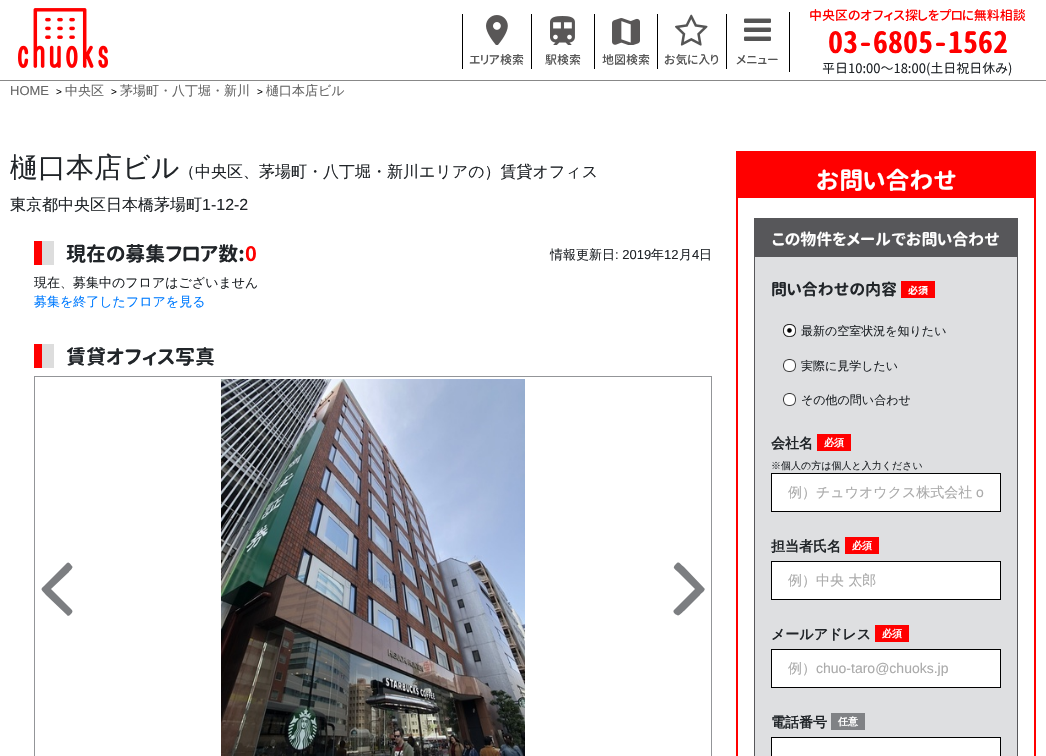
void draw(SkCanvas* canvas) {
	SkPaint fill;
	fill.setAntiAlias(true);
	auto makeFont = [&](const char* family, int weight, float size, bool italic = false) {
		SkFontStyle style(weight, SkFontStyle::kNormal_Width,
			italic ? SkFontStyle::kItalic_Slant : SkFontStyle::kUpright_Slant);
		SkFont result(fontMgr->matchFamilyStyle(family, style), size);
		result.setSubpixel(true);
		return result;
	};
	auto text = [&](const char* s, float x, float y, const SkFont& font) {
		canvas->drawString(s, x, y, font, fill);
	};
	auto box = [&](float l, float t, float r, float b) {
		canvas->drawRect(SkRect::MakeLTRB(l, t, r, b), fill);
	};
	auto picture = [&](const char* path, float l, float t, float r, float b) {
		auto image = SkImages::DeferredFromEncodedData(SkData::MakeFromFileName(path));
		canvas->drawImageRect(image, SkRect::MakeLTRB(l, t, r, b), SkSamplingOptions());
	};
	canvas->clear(0xFFFFFFFF);
	fill.setColor(0xFF888888);
	box(0, 80, 1046, 81);
	picture("image0.png", 18, 8, 108, 68);
	fill.setColor(0xFF000000);
	box(462, 14, 463, 69);
	picture("image1.png", 486, 15, 508, 45);
	box(531, 14, 532, 69);
	picture("image2.png", 550, 16, 575, 45);
	box(594, 14, 595, 69);
	picture("image3.png", 612, 18, 640, 45);
	box(657, 14, 658, 69);
	picture("image4.png", 675, 14, 708, 46);
	box(726, 14, 727, 69);
	picture("image5.png", 744, 18, 771, 41);
	box(789, 12, 790, 72);
	fill.setColor(0xFFDDDDDD);
	box(42, 241, 54, 265);
	fill.setColor(0xFFFF0000);
	box(34, 241, 42, 265);
	fill.setColor(0xFFDDDDDD);
	box(42, 344, 54, 368);
	fill.setColor(0xFFFF0000);
	box(34, 344, 42, 368);
	fill.setStyle(SkPaint::kStroke_Style);
	fill.setStrokeWidth(1);
	fill.setColor(0xFF939598);
	canvas->drawRect(SkRect::MakeLTRB(34.5f, 376.5f, 711.5f, 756.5f), fill);
	fill.setStyle(SkPaint::kFill_Style);
	fill.setColor(0xFF7C7E81);
	canvas->drawPath(SkPathBuilder().moveTo(72, 566).cubicTo(74, 568, 69, 571, 69, 572).lineTo(51, 589).lineTo(69, 607).cubicTo(72, 610, 74, 611, 71, 614).cubicTo(70, 615, 68, 617, 67, 615).lineTo(46, 595).cubicTo(40, 588, 40, 590, 46, 584).lineTo(67, 563).cubicTo(69, 561, 71, 565, 72, 566).close().detach(), fill);
	picture("image6.png", 221, 379, 525, 756);
	canvas->drawPath(SkPathBuilder().moveTo(704, 588).cubicTo(707, 590, 700, 594, 700, 595).lineTo(684, 611).cubicTo(683, 611, 679, 617, 677, 615).cubicTo(676, 615, 672, 612, 674, 610).lineTo(695, 589).lineTo(678, 572).cubicTo(674, 568, 672, 568, 676, 564).cubicTo(679, 561, 679, 563, 684, 567).close().detach(), fill);
	fill.setStyle(SkPaint::kStroke_Style);
	fill.setStrokeWidth(2);
	fill.setColor(0xFFFF0000);
	canvas->drawRect(SkRect::MakeLTRB(737, 152, 1035, 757), fill);
	fill.setStyle(SkPaint::kFill_Style);
	box(738, 153, 1034, 198);
	fill.setColor(0xFFDEDFE1);
	box(755, 257, 1017, 756);
	fill.setStyle(SkPaint::kStroke_Style);
	fill.setStrokeWidth(1);
	fill.setColor(0xFF57575A);
	canvas->drawRect(SkRect::MakeLTRB(754.5f, 218.5f, 1017.5f, 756.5f), fill);
	fill.setStyle(SkPaint::kFill_Style);
	box(755, 219, 1017, 257);
	fill.setColor(0xFFFF0000);
	box(901, 281, 935, 298);
	picture("image7.png", 783, 324, 796, 337);
	picture("image8.png", 783, 324, 796, 337);
	picture("image7.png", 783, 359, 796, 372);
	picture("image7.png", 783, 393, 796, 406);
	box(817, 434, 851, 451);
	fill.setColor(0xFFFFFFFF);
	canvas->drawRect(SkRect::MakeLTRB(771.5f, 473.5f, 1000.5f, 511.5f), fill);
	fill.setStyle(SkPaint::kStroke_Style);
	fill.setColor(0xFF000000);
	canvas->drawRect(SkRect::MakeLTRB(771.5f, 473.5f, 1000.5f, 511.5f), fill);
	fill.setStyle(SkPaint::kFill_Style);
	fill.setColor(0xFFFF0000);
	box(845, 537, 879, 554);
	fill.setColor(0xFFFFFFFF);
	canvas->drawRect(SkRect::MakeLTRB(771.5f, 561.5f, 1000.5f, 599.5f), fill);
	fill.setStyle(SkPaint::kStroke_Style);
	fill.setColor(0xFF000000);
	canvas->drawRect(SkRect::MakeLTRB(771.5f, 561.5f, 1000.5f, 599.5f), fill);
	fill.setStyle(SkPaint::kFill_Style);
	fill.setColor(0xFFFF0000);
	box(875, 625, 909, 642);
	fill.setColor(0xFFFFFFFF);
	canvas->drawRect(SkRect::MakeLTRB(771.5f, 649.5f, 1000.5f, 687.5f), fill);
	fill.setStyle(SkPaint::kStroke_Style);
	fill.setColor(0xFF000000);
	canvas->drawRect(SkRect::MakeLTRB(771.5f, 649.5f, 1000.5f, 687.5f), fill);
	fill.setStyle(SkPaint::kFill_Style);
	fill.setColor(0xFF808285);
	box(831, 713, 865, 730);
	fill.setColor(0xFFFFFFFF);
	canvas->drawRect(SkRect::MakeLTRB(771.5f, 737.5f, 1000.5f, 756.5f), fill);
	fill.setStyle(SkPaint::kStroke_Style);
	fill.setColor(0xFF000000);
	canvas->drawRect(SkRect::MakeLTRB(771.5f, 737.5f, 1000.5f, 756.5f), fill);
	auto font1 = makeFont("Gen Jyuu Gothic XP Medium", 500, 12);
	fill.setStyle(SkPaint::kFill_Style);
	fill.setColor(0xFF555555);
	text("エリア検索", 469, 64, font1);
	text("駅検索", 545, 64, font1);
	text("地図検索", 602, 64, font1);
	text("お気に入り", 664, 64, font1);
	text("メニュー", 736, 64, font1);
	auto font2 = makeFont("Gen Jyuu Gothic XP Medium", 500, 13);
	fill.setColor(0xFFFF0000);
	text("中央区のオフィス探しをプロに無料相談", 809, 20, font2);
	auto font3 = makeFont("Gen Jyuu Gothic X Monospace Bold", 700, 30);
	text("03-6805-1562", 828, 53, font3);
	auto font4 = makeFont("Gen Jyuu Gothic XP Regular", 400, 13);
	fill.setColor(0xFF212529);
	text("平日10:00〜18:00(土日祝日休み)", 822, 73, font4);
	auto font5 = makeFont("Liberation Sans", 400, 13);
	fill.setColor(0xFF666666);
	text("HOME", 10, 95, font5);
	auto font6 = makeFont("Liberation Sans", 400, 10);
	fill.setColor(0xFF000000);
	text(">", 56, 95, font6);
	auto font7 = makeFont("WenQuanYi Zen Hei", 500, 13);
	fill.setColor(0xFF666666);
	text("中央区", 65, 95, font7);
	fill.setColor(0xFF000000);
	text(">", 111, 95, font6);
	fill.setColor(0xFF666666);
	text("茅場町・八丁堀・新川", 120, 95, font7);
	fill.setColor(0xFF000000);
	text(">", 257, 95, font6);
	fill.setColor(0xFF666666);
	text("樋口本店ビル", 266, 95, font7);
	auto font8 = makeFont("WenQuanYi Zen Hei", 500, 28);
	fill.setColor(0xFF212529);
	text("樋口本店ビル", 10, 177, font8);
	auto font9 = makeFont("WenQuanYi Zen Hei", 500, 16);
	text("（中央区、茅場町・八丁堀・新川エリアの）賃貸オフィス", 179, 177, font9);
	text("東京都中央区日本橋茅場町", 10, 210, font9);
	auto font10 = makeFont("Liberation Sans", 400, 16);
	text("1-12-2", 202, 210, font10);
	auto font11 = makeFont("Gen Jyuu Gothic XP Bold", 700, 20);
	text("現在の募集フロア数:", 66, 261, font11);
	fill.setColor(0xFFFF0000);
	text("0", 245, 261, font11);
	fill.setColor(0xFF212529);
	text("情報更新日", 550, 259, font7);
	text(": 2019", 615, 259, font5);
	text("年", 651, 259, font7);
	text("12", 664, 259, font5);
	text("月", 679, 259, font7);
	text("4", 692, 259, font5);
	text("日", 699, 259, font7);
	text("現在、募集中のフロアはございません", 34, 287, font7);
	fill.setColor(0xFF007BFF);
	text("募集を終了したフロアを見る", 34, 306, font7);
	fill.setColor(0xFF212529);
	text("賃貸オフィス写真", 66, 364, font11);
	auto font12 = makeFont("Gen Jyuu Gothic XP Bold", 700, 24);
	fill.setColor(0xFFFFFFFF);
	text("お問い合わせ", 816, 189, font12);
	auto font13 = makeFont("Gen Jyuu Gothic XP Bold", 700, 16);
	text("この物件をメールでお問い合わせ", 772, 245, font13);
	fill.setColor(0xFF212529);
	text("問い合わせの内容", 771, 295, font13);
	auto font14 = makeFont("Gen Jyuu Gothic XP Bold", 700, 10);
	fill.setColor(0xFFFFFFFF);
	text("必須", 908, 294, font14);
	auto font15 = makeFont("WenQuanYi Zen Hei", 500, 12);
	fill.setColor(0xFF212529);
	text("最新の空室状況を知りたい", 801, 335, font15);
	text("実際に見学したい", 801, 370, font15);
	text("その他の問い合わせ", 801, 404, font15);
	auto font16 = makeFont("WenQuanYi Zen Hei", 700, 14);
	text("会社名", 771, 448, font16);
	auto font17 = makeFont("WenQuanYi Zen Hei", 700, 10);
	fill.setColor(0xFFFFFFFF);
	text("必須", 824, 446, font17);
	auto font18 = makeFont("WenQuanYi Zen Hei", 500, 10);
	fill.setColor(0xFF212529);
	text("※個人の方は個人と入力ください", 771, 469, font18);
	auto font19 = makeFont("WenQuanYi Zen Hei", 500, 14);
	fill.setColor(0xFFAAAAAA);
	text("例）チュウオウクス株式会社", 788, 497, font19);
	auto font20 = makeFont("Liberation Sans", 400, 14);
	text("o", 976, 497, font20);
	fill.setColor(0xFF212529);
	text("担当者氏名", 771, 551, font16);
	fill.setColor(0xFFFFFFFF);
	text("必須", 852, 549, font17);
	fill.setColor(0xFFAAAAAA);
	text("例）中央 太郎", 788, 585, font19);
	fill.setColor(0xFF212529);
	text("メールアドレス", 771, 639, font16);
	fill.setColor(0xFFFFFFFF);
	text("必須", 882, 637, font17);
	fill.setColor(0xFFAAAAAA);
	text("例）", 788, 673, font19);
	text("chuo-taro@chuoks.jp", 816, 673, font20);
	fill.setColor(0xFF212529);
	text("電話番号", 771, 727, font16);
	fill.setColor(0xFFFFFFFF);
	text("任意", 838, 725, font17);
}
